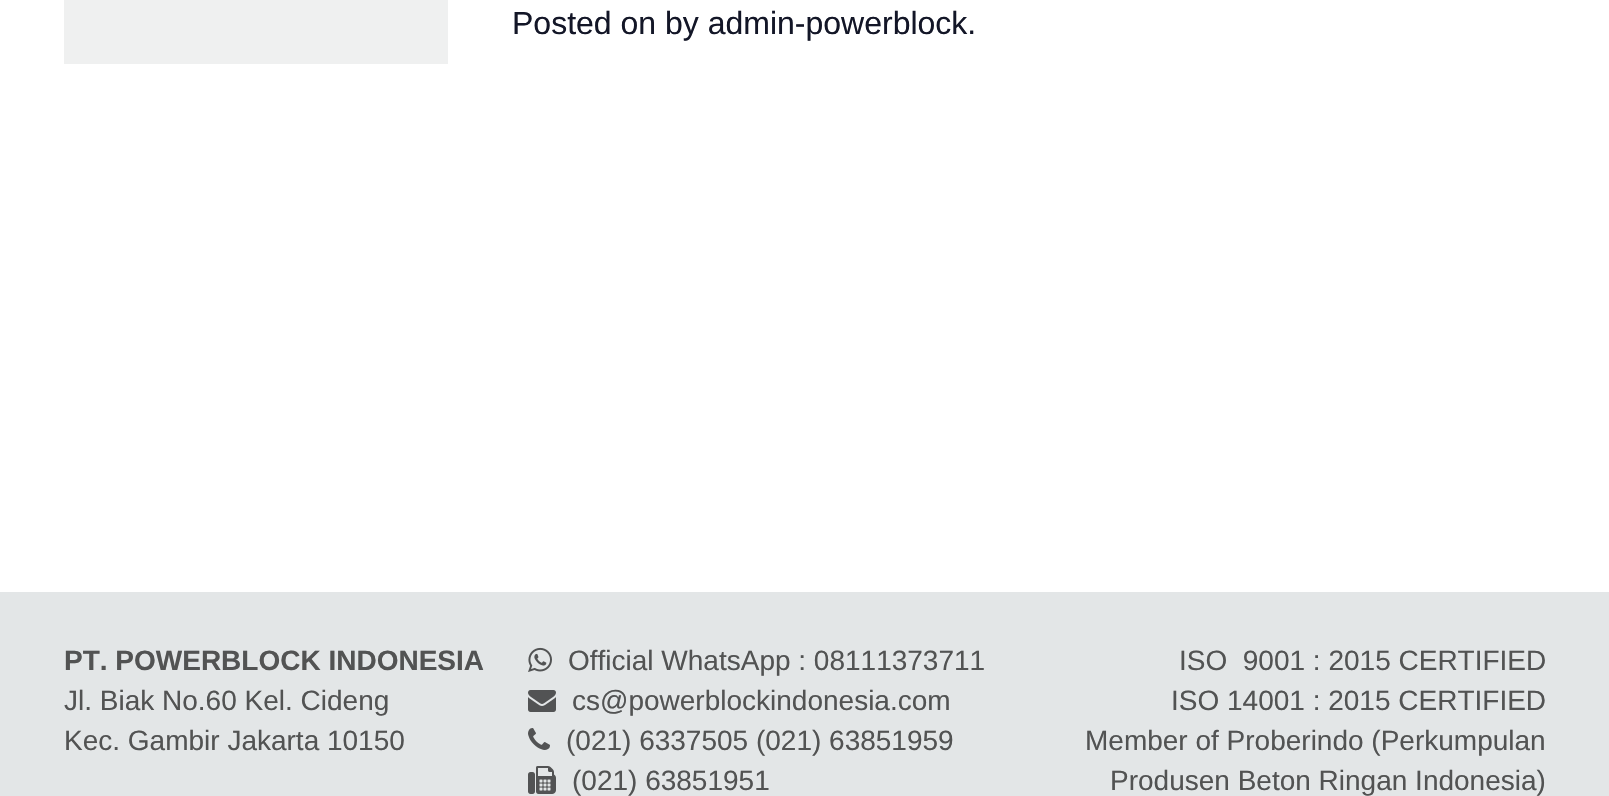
void draw(SkCanvas* canvas) {
	SkPaint fill;
	fill.setAntiAlias(true);
	auto makeFont = [&](const char* family, int weight, float size, bool italic = false) {
		SkFontStyle style(weight, SkFontStyle::kNormal_Width,
			italic ? SkFontStyle::kItalic_Slant : SkFontStyle::kUpright_Slant);
		SkFont result(fontMgr->matchFamilyStyle(family, style), size);
		result.setSubpixel(true);
		return result;
	};
	auto text = [&](const char* s, float x, float y, const SkFont& font) {
		canvas->drawString(s, x, y, font, fill);
	};
	auto box = [&](float l, float t, float r, float b) {
		canvas->drawRect(SkRect::MakeLTRB(l, t, r, b), fill);
	};
	auto picture = [&](const char* path, float l, float t, float r, float b) {
		auto image = SkImages::DeferredFromEncodedData(SkData::MakeFromFileName(path));
		canvas->drawImageRect(image, SkRect::MakeLTRB(l, t, r, b), SkSamplingOptions());
	};
	canvas->clear(0xFFFFFFFF);
	fill.setColor(0xFFEFF0F0);
	box(64, 0, 448, 64);
	fill.setColor(0xFFE3E6E7);
	box(0, 592, 1609, 796);
	picture("image0.png", 528, 647, 552, 672);
	picture("image1.png", 528, 690, 556, 712);
	picture("image2.png", 528, 728, 550, 750);
	picture("image3.png", 528, 766, 556, 794);
	auto font1 = makeFont("Liberation Sans", 400, 32);
	fill.setColor(0xFF131627);
	text("Posted on by admin-powerblock.", 512, 34, font1);
	auto font2 = makeFont("Liberation Sans", 700, 28);
	fill.setColor(0xFF525353);
	text("PT. POWERBLOCK INDONESIA", 64, 670, font2);
	auto font3 = makeFont("Liberation Sans", 400, 28);
	text("Jl. Biak No.60 Kel. Cideng", 64, 710, font3);
	text("Kec. Gambir Jakarta 10150", 64, 750, font3);
	text("Official WhatsApp : 08111373711", 568, 670, font3);
	text("cs@powerblockindonesia.com", 572, 710, font3);
	text("(021) 6337505 (021) 63851959", 566, 750, font3);
	text("(021) 63851951", 572, 790, font3);
	text("ISO  9001 : 2015 CERTIFIED", 1179, 670, font3);
	text("ISO 14001 : 2015 CERTIFIED", 1171, 710, font3);
	text("Member of Proberindo (Perkumpulan", 1085, 750, font3);
	text("Produsen Beton Ringan Indonesia)", 1110, 790, font3);
}
